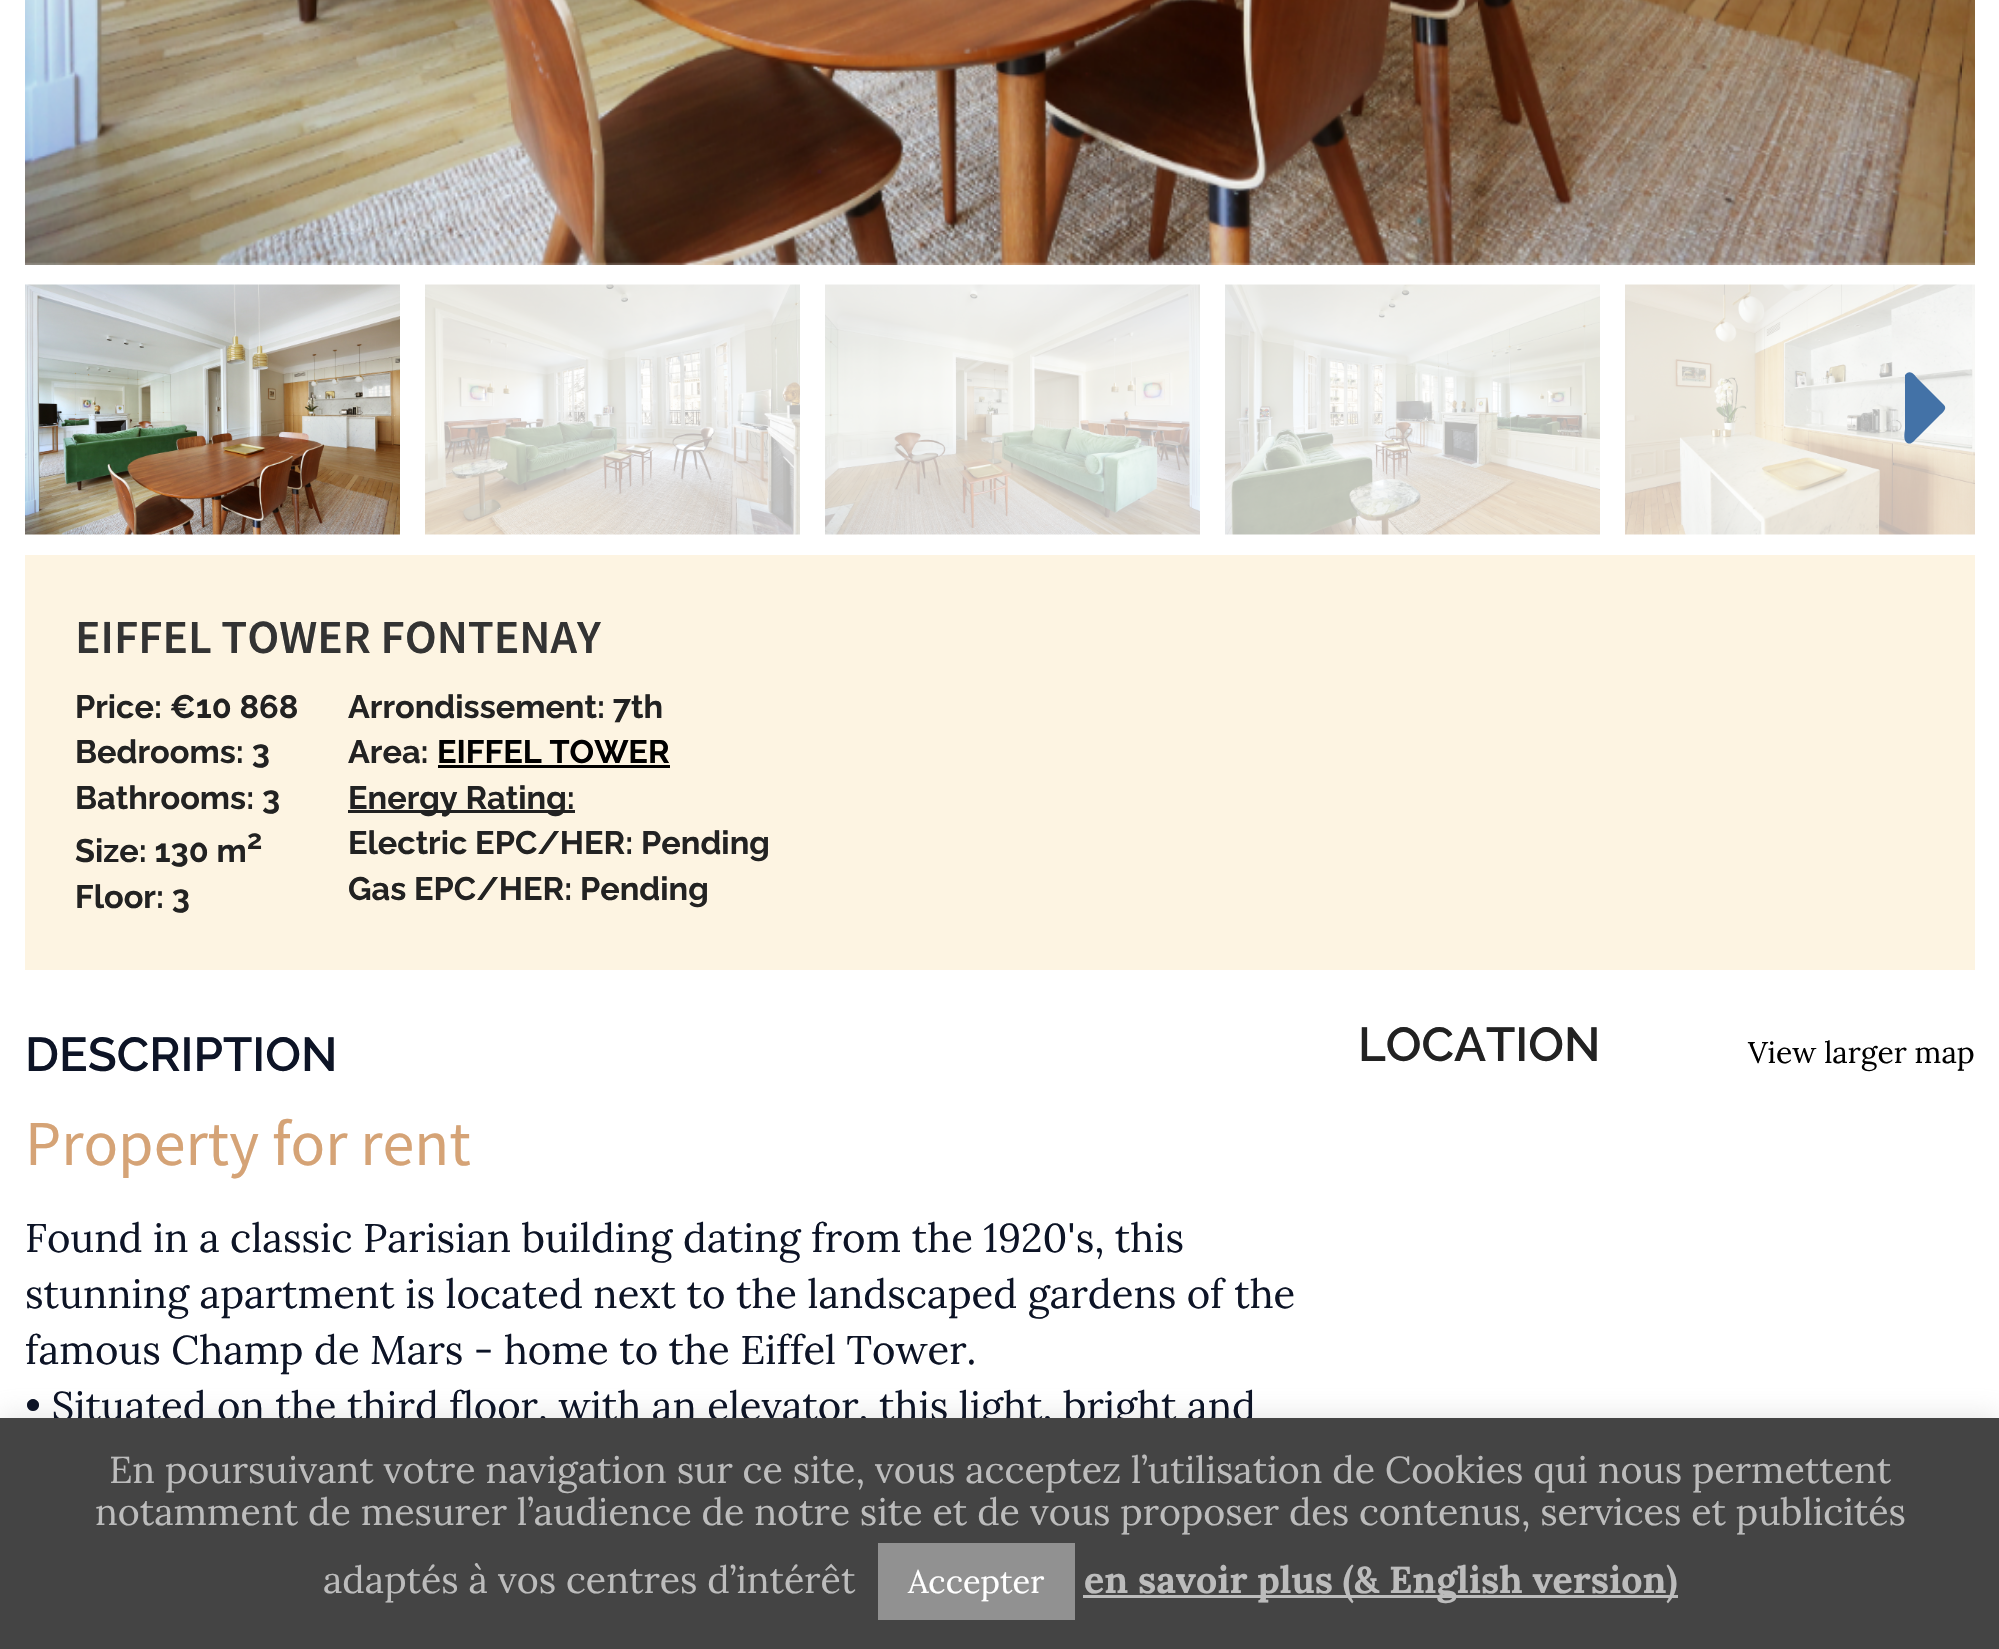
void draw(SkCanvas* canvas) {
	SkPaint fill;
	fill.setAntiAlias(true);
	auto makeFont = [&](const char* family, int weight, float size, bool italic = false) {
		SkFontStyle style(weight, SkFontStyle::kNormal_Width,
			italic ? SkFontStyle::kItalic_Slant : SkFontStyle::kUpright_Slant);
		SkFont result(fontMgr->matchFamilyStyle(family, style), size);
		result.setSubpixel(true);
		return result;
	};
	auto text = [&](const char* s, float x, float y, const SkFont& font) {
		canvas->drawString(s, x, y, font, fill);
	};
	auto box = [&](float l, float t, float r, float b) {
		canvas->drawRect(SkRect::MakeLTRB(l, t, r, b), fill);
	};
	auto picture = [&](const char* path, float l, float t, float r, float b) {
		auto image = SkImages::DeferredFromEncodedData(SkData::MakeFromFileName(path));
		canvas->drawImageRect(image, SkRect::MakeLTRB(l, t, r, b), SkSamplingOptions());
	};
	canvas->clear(0xFFFFFFFF);
	picture("image0.png", 25, 0, 1975, 265);
	picture("image1.png", 25, 284, 400, 535);
	picture("image2.png", 425, 284, 800, 535);
	picture("image3.png", 825, 284, 1200, 535);
	picture("image4.png", 1225, 284, 1600, 535);
	picture("image5.png", 1625, 284, 1975, 535);
	fill.setColor(0xFF4372A7);
	canvas->drawPath(SkPathBuilder().moveTo(1944, 405).cubicTo(1948, 409, 1941, 414, 1939, 416).lineTo(1918, 437).cubicTo(1915, 439, 1911, 447, 1906, 442).cubicTo(1903, 439, 1905, 430, 1905, 429).lineTo(1905, 375).lineTo(1907, 373).cubicTo(1912, 370, 1916, 377, 1918, 379).close().detach(), fill);
	fill.setColor(0xFFFDF4E2);
	box(25, 555, 1975, 970);
	fill.setColor(0xFF000000);
	box(438, 765, 670, 768);
	fill.setColor(0xFF222222);
	box(348, 810, 575, 813);
	fill.setColor(0x4DACABAB);
	fill.setMaskFilter(SkMaskFilter::MakeBlur(kNormal_SkBlurStyle, 12.5f));
	canvas->drawRect(SkRect::MakeLTRB(0, 1415, 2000, 1648), fill);
	fill.setMaskFilter(nullptr);
	auto font1 = makeFont("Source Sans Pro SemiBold", 600, 47.5f);
	fill.setColor(0xFF333333);
	text("EIFFEL TOWER FONTENAY", 75, 653, font1);
	auto font2 = makeFont("Raleway", 700, 32.5f);
	fill.setColor(0xFF222222);
	text("Price: €10 868", 75, 718, font2);
	text("Bedrooms: 3", 75, 763, font2);
	text("Bathrooms: 3", 75, 809, font2);
	text("Size: 130 m", 75, 862, font2);
	auto font3 = makeFont("Raleway", 700, 27);
	text("2", 247, 849, font3);
	text("Floor: 3", 75, 908, font2);
	text("Arrondissement: 7th", 348, 718, font2);
	text("Area:", 348, 763, font2);
	fill.setColor(0xFF000000);
	text("EIFFEL TOWER", 437, 763, font2);
	fill.setColor(0xFF222222);
	text("Energy Rating:", 348, 809, font2);
	text("Electric EPC/HER: Pending", 348, 854, font2);
	text("Gas EPC/HER: Pending", 348, 900, font2);
	auto font4 = makeFont("Raleway", 600, 47.5f);
	fill.setColor(0xFF0D1426);
	text("DESCRIPTION", 25, 1071, font4);
	auto font5 = makeFont("Source Sans Pro", 400, 64);
	fill.setColor(0xFFD5A376);
	text("Property for rent", 25, 1165, font5);
	auto font6 = makeFont("Lora", 400, 40);
	fill.setColor(0xFF0D1426);
	text("Found in a classic Parisian building dating from the 1920's, this", 25, 1252, font6);
	text("stunning apartment is located next to the landscaped gardens of the", 25, 1308, font6);
	text("famous Champ de Mars - home to the Eiffel Tower.", 25, 1364, font6);
	text("• Situated on the third floor, with an elevator, this light, bright and", 25, 1420, font6);
	fill.setColor(0xFF222222);
	text("LOCATION", 1358, 1061, font4);
	auto font7 = makeFont("Lora", 400, 30);
	fill.setColor(0xFF000000);
	text("View larger map", 1748, 1063, font7);
	fill.setColor(0xFF444444);
	box(0, 1418, 1999, 1649);
	auto font8 = makeFont("Lora", 400, 37.5f);
	fill.setColor(0xFFBCBCBC);
	text("En poursuivant votre navigation sur ce site, vous acceptez l’utilisation de Cookies qui nous permettent", 109, 1483, font8);
	text("notamment de mesurer l’audience de notre site et de vous proposer des contenus, services et publicités", 95, 1525, font8);
	text("adaptés à vos centres d’intérêt", 323, 1593, font8);
	fill.setColor(0xFF919191);
	box(878, 1543, 1075, 1620);
	auto font9 = makeFont("Lora", 400, 32.5f);
	fill.setColor(0xFFFFFFFF);
	text("Accepter", 908, 1593, font9);
	fill.setColor(0xFFBCBCBC);
	box(1083, 1595, 1678, 1598);
	auto font10 = makeFont("Lora", 700, 37.5f);
	text("en savoir plus (& English version)", 1084, 1593, font10);
}
